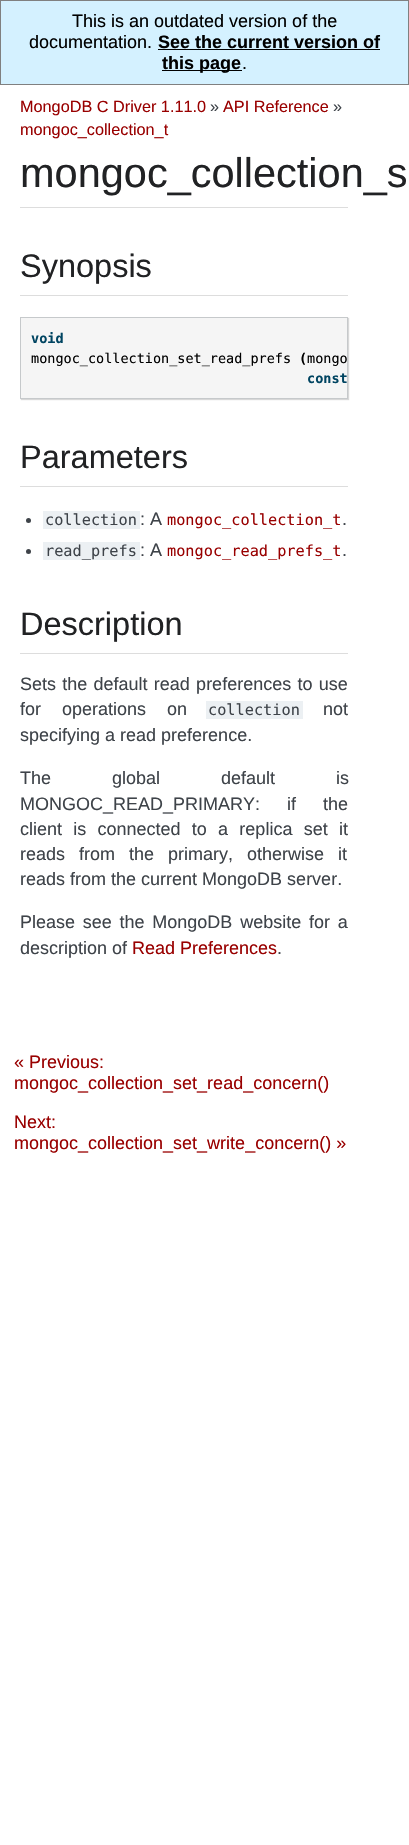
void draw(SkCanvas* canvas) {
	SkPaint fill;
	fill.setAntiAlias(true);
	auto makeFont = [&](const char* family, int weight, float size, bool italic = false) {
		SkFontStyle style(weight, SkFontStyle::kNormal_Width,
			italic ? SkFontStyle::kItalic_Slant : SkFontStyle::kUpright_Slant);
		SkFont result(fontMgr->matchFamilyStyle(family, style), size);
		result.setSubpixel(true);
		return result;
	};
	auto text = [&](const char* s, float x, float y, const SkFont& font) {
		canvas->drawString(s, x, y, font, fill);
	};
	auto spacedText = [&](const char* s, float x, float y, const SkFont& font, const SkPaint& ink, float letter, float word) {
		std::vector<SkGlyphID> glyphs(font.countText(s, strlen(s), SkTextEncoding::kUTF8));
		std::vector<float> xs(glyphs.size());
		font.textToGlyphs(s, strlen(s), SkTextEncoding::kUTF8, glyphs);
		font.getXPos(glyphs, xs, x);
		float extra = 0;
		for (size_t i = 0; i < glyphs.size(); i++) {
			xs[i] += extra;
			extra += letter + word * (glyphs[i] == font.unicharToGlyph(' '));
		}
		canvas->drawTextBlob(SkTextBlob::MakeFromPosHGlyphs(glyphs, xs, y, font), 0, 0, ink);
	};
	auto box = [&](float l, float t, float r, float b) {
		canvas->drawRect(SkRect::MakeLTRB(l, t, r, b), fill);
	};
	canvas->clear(0xFFFFFFFF);
	fill.setColor(0xFFD4F1FF);
	canvas->drawRect(SkRect::MakeLTRB(0.5f, 0.5f, 408.5f, 84.5f), fill);
	fill.setStyle(SkPaint::kStroke_Style);
	fill.setStrokeWidth(1);
	fill.setColor(0xFF808080);
	canvas->drawRect(SkRect::MakeLTRB(0.5f, 0.5f, 408.5f, 84.5f), fill);
	fill.setStyle(SkPaint::kFill_Style);
	fill.setColor(0xFF000000);
	box(158, 49, 380, 50);
	box(162, 70, 242, 71);
	fill.setColor(0xFFDDDDDD);
	box(20, 207, 348, 208);
	box(20, 295, 348, 296);
	fill.setColor(0xFFD8D8D8);
	fill.setMaskFilter(SkMaskFilter::MakeBlur(kNormal_SkBlurStyle, 0.5f));
	canvas->drawRect(SkRect::MakeLTRB(21, 318, 349, 400), fill);
	fill.setMaskFilter(nullptr);
	fill.setColor(0xFFF5F5F5);
	canvas->drawRect(SkRect::MakeLTRB(20.5f, 317.5f, 347.5f, 398.5f), fill);
	fill.setStyle(SkPaint::kStroke_Style);
	fill.setColor(0xFFC6C9CB);
	canvas->drawRect(SkRect::MakeLTRB(20.5f, 317.5f, 347.5f, 398.5f), fill);
	fill.setStyle(SkPaint::kFill_Style);
	fill.setColor(0xFFDDDDDD);
	box(20, 486, 348, 487);
	fill.setColor(0xFF3E4349);
	canvas->drawCircle(28.5f, 520.5f, 2.5f, fill);
	fill.setColor(0xFFECF0F3);
	box(43, 511, 140, 529);
	fill.setColor(0xFF3E4349);
	canvas->drawCircle(28.5f, 551.5f, 2.5f, fill);
	fill.setColor(0xFFECF0F3);
	box(43, 542, 140, 560);
	fill.setColor(0xFFDDDDDD);
	box(20, 653, 348, 654);
	fill.setColor(0xFFECF0F3);
	box(206, 701, 303, 719);
	auto font1 = makeFont("Liberation Sans", 400, 18);
	fill.setColor(0xFF000000);
	text("This is an outdated version of the", 72, 27, font1);
	text("documentation.", 29, 48, font1);
	auto font2 = makeFont("Liberation Sans", 700, 18);
	text("See the current version of", 158, 48, font2);
	text("this page", 162, 69, font2);
	text(".", 242, 69, font1);
	auto font3 = makeFont("Liberation Sans", 400, 16.25f);
	fill.setColor(0xFF990000);
	text("MongoDB C Driver 1.11.0", 20, 112, font3);
	fill.setColor(0xFF3E4349);
	text("»", 210, 112, font3);
	fill.setColor(0xFF990000);
	text("API Reference", 223, 112, font3);
	fill.setColor(0xFF3E4349);
	text("»", 333, 112, font3);
	fill.setColor(0xFF990000);
	text("mongoc_collection_t", 20, 135, font3);
	auto font4 = makeFont("Liberation Sans", 400, 41.5f);
	fill.setColor(0xFF212224);
	text("mongoc_collection_s", 20, 187, font4);
	auto font5 = makeFont("Liberation Sans", 400, 32.5f);
	text("Synopsis", 20, 277, font5);
	auto font6 = makeFont("DejaVu Sans Mono", 700, 13.5f);
	fill.setColor(0xFF004461);
	text("void", 31, 343, font6);
	auto font7 = makeFont("DejaVu Sans Mono", 400, 13.5f);
	fill.setColor(0xFF000000);
	text("mongoc_collection_set_read_prefs", 31, 363, font7);
	text("(", 299, 363, font6);
	text("mongo", 307, 363, font7);
	fill.setColor(0xFF004461);
	text("const", 307, 383, font6);
	fill.setColor(0xFF212224);
	text("Parameters", 20, 468, font5);
	auto font8 = makeFont("DejaVu Sans Mono", 400, 15.25f);
	fill.setColor(0xFF3E4349);
	text("collection", 45, 525, font8);
	text(": A", 140, 525, font1);
	fill.setColor(0xFF990000);
	text("mongoc_collection_t", 167, 525, font8);
	fill.setColor(0xFF3E4349);
	text(".", 342, 525, font1);
	text("read_prefs", 45, 556, font8);
	text(": A", 140, 556, font1);
	fill.setColor(0xFF990000);
	text("mongoc_read_prefs_t", 167, 556, font8);
	fill.setColor(0xFF3E4349);
	text(".", 342, 556, font1);
	fill.setColor(0xFF212224);
	text("Description", 20, 635, font5);
	fill.setColor(0xFF3E4349);
	spacedText("Sets the default read preferences to use", 20, 690, font1, fill, 0, 1.25f);
	spacedText("for operations on", 20, 715, font1, fill, 0, 16);
	text("collection", 208, 715, font8);
	text("not", 323, 715, font1);
	text("specifying a read preference.", 20, 741, font1);
	spacedText("The global default is", 20, 784, font1, fill, 0, 56);
	spacedText("MONGOC_READ_PRIMARY: if the", 20, 810, font1, fill, 0, 22);
	spacedText("client is connected to a replica set it", 20, 835, font1, fill, 0, 6.25f);
	spacedText("reads from the primary, otherwise it", 20, 860, font1, fill, 0, 9);
	text("reads from the current MongoDB server.", 20, 885, font1);
	spacedText("Please see the MongoDB website for a", 20, 928, font1, fill, 0, 2.75f);
	text("description of", 20, 954, font1);
	fill.setColor(0xFF990000);
	text("Read Preferences", 132, 954, font1);
	fill.setColor(0xFF3E4349);
	text(".", 277, 954, font1);
	fill.setColor(0xFF990000);
	text("« Previous:", 14, 1068, font1);
	text("mongoc_collection_set_read_concern()", 14, 1089, font1);
	text("Next:", 14, 1128, font1);
	text("mongoc_collection_set_write_concern() »", 14, 1149, font1);
}
